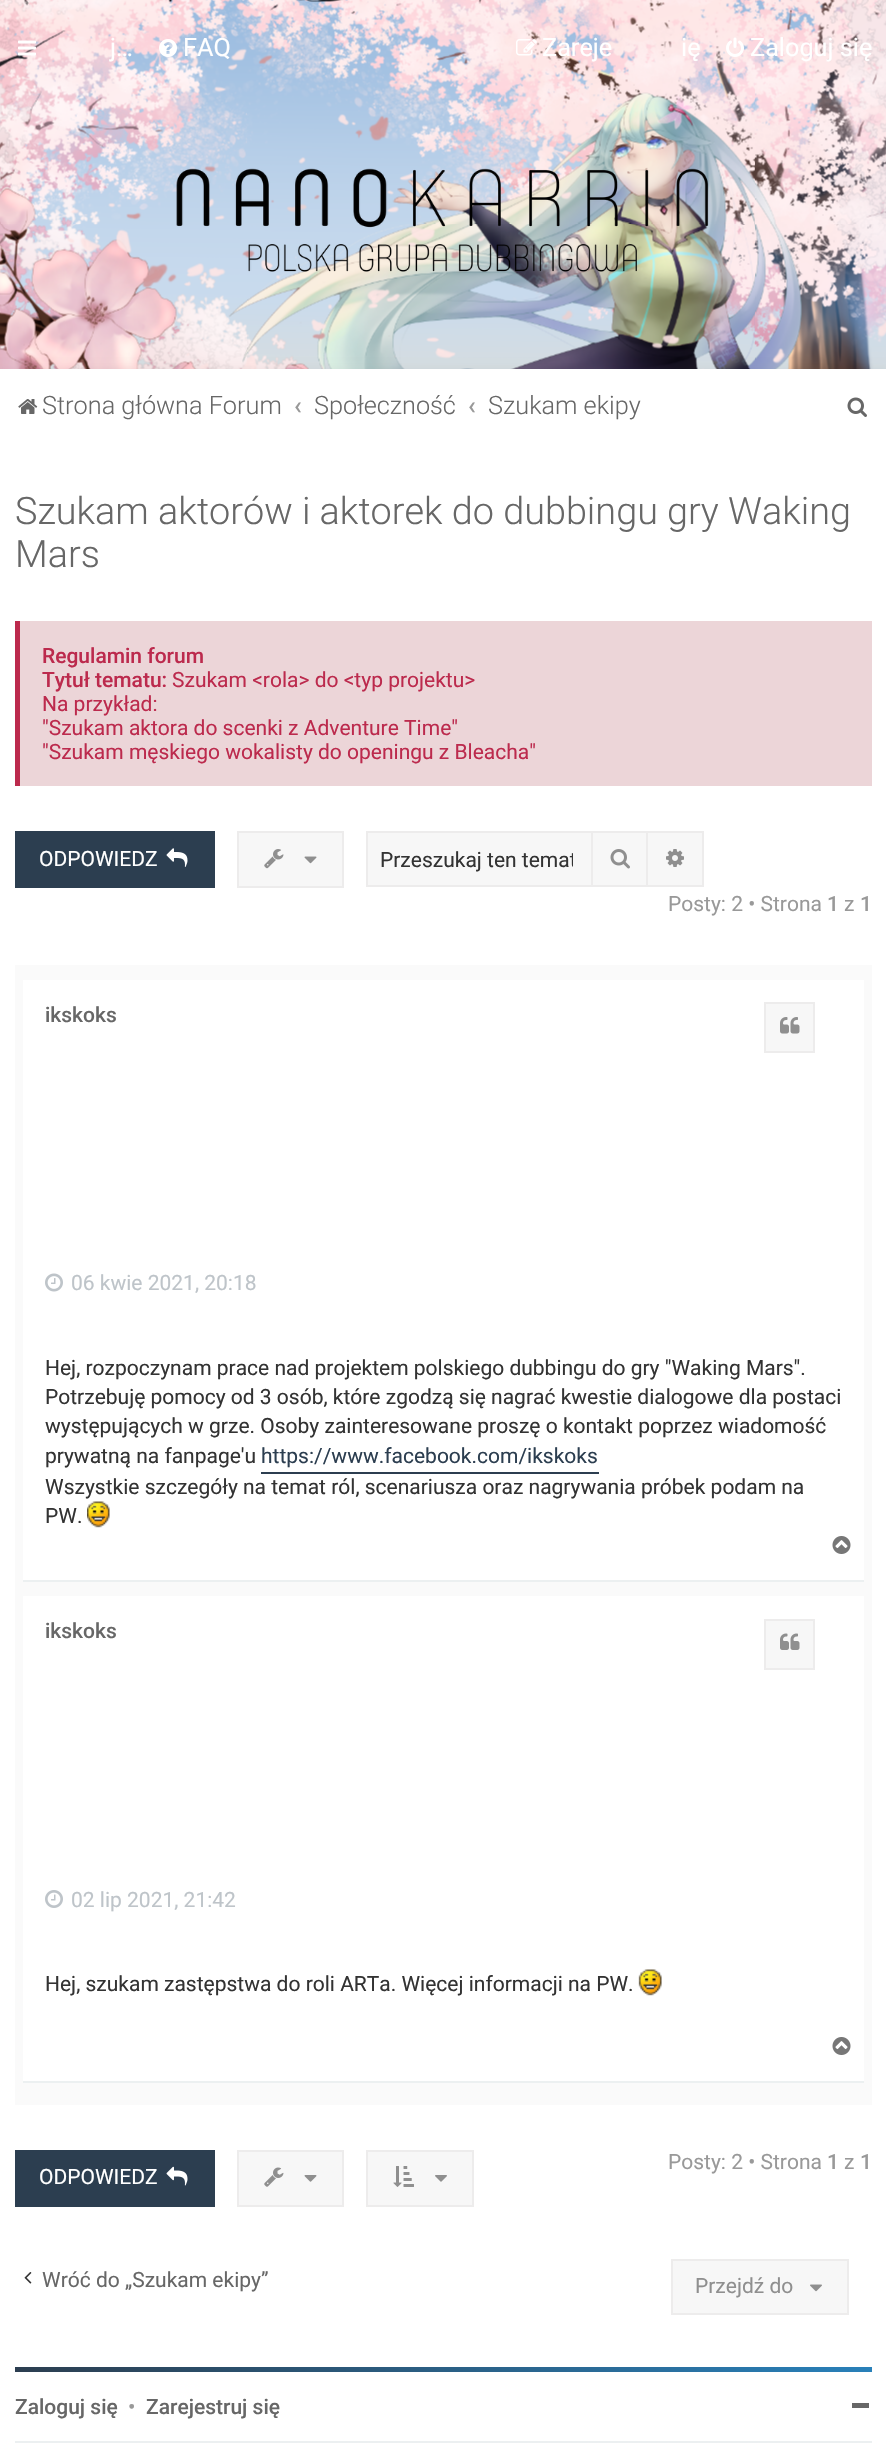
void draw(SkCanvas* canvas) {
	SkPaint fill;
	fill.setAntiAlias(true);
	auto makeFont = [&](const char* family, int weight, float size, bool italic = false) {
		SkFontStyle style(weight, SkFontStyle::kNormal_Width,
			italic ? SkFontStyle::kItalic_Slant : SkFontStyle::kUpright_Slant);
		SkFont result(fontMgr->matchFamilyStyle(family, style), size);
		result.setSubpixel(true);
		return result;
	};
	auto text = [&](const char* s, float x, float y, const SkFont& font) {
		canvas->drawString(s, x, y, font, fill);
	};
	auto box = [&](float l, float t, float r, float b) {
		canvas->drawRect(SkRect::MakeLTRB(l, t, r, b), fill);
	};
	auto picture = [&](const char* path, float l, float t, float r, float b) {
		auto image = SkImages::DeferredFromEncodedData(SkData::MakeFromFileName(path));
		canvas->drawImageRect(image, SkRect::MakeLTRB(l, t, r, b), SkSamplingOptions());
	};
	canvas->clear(0xFFFFFFFF);
	picture("image0.png", 0, 0, 886, 369);
	picture("image1.png", 18, 40, 36, 56);
	picture("image2.png", 159, 39, 177, 57);
	picture("image3.png", 516, 39, 537, 56);
	picture("image4.png", 726, 37, 744, 57);
	picture("image5.png", 176, 168, 709, 272);
	fill.setColor(0x0D000000);
	fill.setMaskFilter(SkMaskFilter::MakeBlur(kNormal_SkBlurStyle, 4));
	canvas->drawRect(SkRect::MakeLTRB(0, 369, 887, 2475), fill);
	fill.setMaskFilter(nullptr);
	fill.setColor(0xFFFFFFFF);
	box(0, 369, 886, 2463);
	picture("image6.png", 18, 399, 38, 414);
	picture("image7.png", 847, 397, 867, 417);
	fill.setColor(0xFFECD5D8);
	box(20, 621, 872, 786);
	fill.setColor(0xFFBC2A4D);
	box(15, 621, 20, 786);
	fill.setColor(0xFF2C3E50);
	box(15, 831, 215, 888);
	picture("image8.png", 166, 848, 188, 867);
	fill.setColor(0xFFF7F7F7);
	canvas->drawRect(SkRect::MakeLTRB(238, 832, 343, 887), fill);
	fill.setStyle(SkPaint::kStroke_Style);
	fill.setStrokeWidth(2);
	fill.setColor(0xFFEDECEC);
	canvas->drawRect(SkRect::MakeLTRB(238, 832, 343, 887), fill);
	picture("image9.png", 264, 849, 284, 869);
	picture("image10.png", 304, 856, 317, 864);
	fill.setStyle(SkPaint::kFill_Style);
	fill.setColor(0xFFF7F7F7);
	box(368, 833, 591, 885);
	fill.setColor(0xFFEDECEC);
	box(366, 831, 591, 833);
	box(366, 885, 591, 887);
	box(366, 831, 368, 887);
	fill.setColor(0xFFF7F7F7);
	canvas->drawRect(SkRect::MakeLTRB(592, 832, 647, 886), fill);
	fill.setStyle(SkPaint::kStroke_Style);
	fill.setColor(0xFFEDECEC);
	canvas->drawRect(SkRect::MakeLTRB(592, 832, 647, 886), fill);
	picture("image11.png", 610, 849, 630, 869);
	fill.setStyle(SkPaint::kFill_Style);
	fill.setColor(0xFFF7F7F7);
	box(648, 833, 702, 885);
	fill.setColor(0xFFEDECEC);
	box(648, 831, 704, 833);
	box(702, 831, 704, 887);
	box(648, 885, 704, 887);
	picture("image12.png", 666, 849, 684, 867);
	fill.setColor(0xFFFAFAFA);
	box(15, 965, 872, 2105);
	fill.setColor(0xFFFFFFFF);
	box(23, 980, 864, 1580);
	fill.setColor(0xFFECF0F1);
	box(23, 1580, 864, 1582);
	fill.setColor(0xFFF7F7F7);
	canvas->drawRect(SkRect::MakeLTRB(765, 1003, 814, 1052), fill);
	fill.setStyle(SkPaint::kStroke_Style);
	fill.setColor(0xFFEDECEC);
	canvas->drawRect(SkRect::MakeLTRB(765, 1003, 814, 1052), fill);
	picture("image13.png", 780, 1017, 800, 1034);
	picture("image14.png", 45, 1273, 63, 1292);
	fill.setStyle(SkPaint::kFill_Style);
	fill.setColor(0xFF2C3E50);
	box(261, 1472, 599, 1474);
	picture("image15.png", 87, 1501, 110, 1528);
	picture("image16.png", 832, 1536, 851, 1554);
	fill.setColor(0xFFFFFFFF);
	box(23, 1596, 864, 2081);
	fill.setColor(0xFFECF0F1);
	box(23, 2081, 864, 2083);
	fill.setColor(0xFFF7F7F7);
	canvas->drawRect(SkRect::MakeLTRB(765, 1620, 814, 1669), fill);
	fill.setStyle(SkPaint::kStroke_Style);
	fill.setColor(0xFFEDECEC);
	canvas->drawRect(SkRect::MakeLTRB(765, 1620, 814, 1669), fill);
	picture("image17.png", 780, 1633, 800, 1650);
	picture("image18.png", 45, 1890, 63, 1908);
	picture("image19.png", 638, 1969, 662, 1996);
	picture("image16.png", 832, 2037, 851, 2055);
	fill.setStyle(SkPaint::kFill_Style);
	fill.setColor(0xFFF7F7F7);
	canvas->drawRect(SkRect::MakeLTRB(238, 2151, 343, 2206), fill);
	fill.setStyle(SkPaint::kStroke_Style);
	fill.setColor(0xFFEDECEC);
	canvas->drawRect(SkRect::MakeLTRB(238, 2151, 343, 2206), fill);
	picture("image20.png", 264, 2167, 284, 2187);
	picture("image21.png", 304, 2175, 317, 2182);
	fill.setStyle(SkPaint::kFill_Style);
	fill.setColor(0xFFF7F7F7);
	canvas->drawRect(SkRect::MakeLTRB(367, 2151, 473, 2206), fill);
	fill.setStyle(SkPaint::kStroke_Style);
	fill.setColor(0xFFEDECEC);
	canvas->drawRect(SkRect::MakeLTRB(367, 2151, 473, 2206), fill);
	picture("image22.png", 393, 2166, 414, 2187);
	picture("image23.png", 435, 2175, 447, 2182);
	fill.setStyle(SkPaint::kFill_Style);
	fill.setColor(0xFF2C3E50);
	box(15, 2150, 215, 2207);
	picture("image24.png", 166, 2166, 188, 2186);
	picture("image25.png", 24, 2272, 32, 2284);
	fill.setColor(0xFFF7F7F7);
	canvas->drawRect(SkRect::MakeLTRB(672, 2260, 848, 2314), fill);
	fill.setStyle(SkPaint::kStroke_Style);
	fill.setColor(0xFFEDECEC);
	canvas->drawRect(SkRect::MakeLTRB(672, 2260, 848, 2314), fill);
	picture("image26.png", 810, 2284, 822, 2292);
	fill.setStyle(SkPaint::kFill_Style);
	{
		const SkColor colors[] = {0xFF2C3E50, 0xFF2980B9};
		const float stops[] = {0, 1};
		const SkPoint ends[] = {{15, 2369}, {872, 2369}};
		fill.setShader(SkGradientShader::MakeLinear(ends, colors, stops, 2, SkTileMode::kClamp));
		fill.setAlpha(255);
	}
	box(15, 2367, 872, 2372);
	fill.setShader(nullptr);
	fill.setColor(0xFF676767);
	box(852, 2403, 869, 2408);
	fill.setColor(0xFFECF0F1);
	box(15, 2441, 872, 2443);
	auto font1 = makeFont("Roboto", 400, 25.25f);
	fill.setColor(0xFFFFFFFF);
	text("j…", 110, 56, font1);
	text("FAQ", 183, 56, font1);
	text("Zareje", 542, 56, font1);
	text("ię", 681, 56, font1);
	text("Zaloguj się", 750, 56, font1);
	auto font2 = makeFont("Roboto", 300, 25.25f);
	fill.setColor(0xFF676767);
	text("Strona główna Forum", 42, 414, font2);
	auto font3 = makeFont("Roboto", 500, 25.25f);
	fill.setColor(0xFF999999);
	text("‹", 294, 414, font3);
	fill.setColor(0xFF676767);
	text("Społeczność", 314, 414, font2);
	fill.setColor(0xFF999999);
	text("‹", 468, 414, font3);
	fill.setColor(0xFF676767);
	text("Szukam ekipy", 488, 414, font2);
	auto font4 = makeFont("Roboto", 300, 37.8f);
	text("Szukam aktorów i aktorek do dubbingu gry Waking", 15, 524, font4);
	text("Mars", 15, 567, font4);
	auto font5 = makeFont("Roboto", 500, 21);
	fill.setColor(0xFFBC2A4D);
	text("Regulamin forum", 42, 663, font5);
	text("Tytuł tematu:", 42, 687, font5);
	auto font6 = makeFont("Roboto", 400, 21);
	text("Szukam <rola> do <typ projektu>", 172, 687, font6);
	text("Na przykład:", 42, 711, font6);
	text("\"Szukam aktora do scenki z Adventure Time\"", 42, 735, font6);
	text("\"Szukam męskiego wokalisty do openingu z Bleacha\"", 42, 759, font6);
	fill.setColor(0xFFFFFFFF);
	text("ODPOWIEDZ", 39, 866, font6);
	canvas->save();
	canvas->clipRect(SkRect::MakeLTRB(380, 848, 573, 872));
	fill.setColor(0xFF333333);
	text("Przeszukaj ten temat", 380, 867, font6);
	canvas->restore();
	fill.setColor(0xFF999999);
	text("Posty: 2 • Strona", 668, 911, font6);
	text("1", 827, 911, font5);
	text("z", 844, 911, font6);
	text("1", 860, 911, font5);
	fill.setColor(0xFF676767);
	text("ikskoks", 45, 1022, font5);
	fill.setColor(0xFFBEC4C9);
	text("06 kwie 2021, 20:18", 71, 1290, font6);
	fill.setColor(0xFF333333);
	text("Hej, rozpoczynam prace nad projektem polskiego dubbingu do gry \"Waking Mars\".", 45, 1375, font6);
	text("Potrzebuję pomocy od 3 osób, które zgodzą się nagrać kwestie dialogowe dla postaci", 45, 1404, font6);
	text("występujących w grze. Osoby zainteresowane proszę o kontakt poprzez wiadomość", 45, 1433, font6);
	text("prywatną na fanpage'u", 45, 1463, font6);
	fill.setColor(0xFF2C3E50);
	text("https://www.facebook.com/ikskoks", 261, 1463, font6);
	fill.setColor(0xFF333333);
	text("Wszystkie szczegóły na temat ról, scenariusza oraz nagrywania próbek podam na", 45, 1494, font6);
	text("PW.", 45, 1523, font6);
	fill.setColor(0xFF676767);
	text("ikskoks", 45, 1638, font5);
	fill.setColor(0xFFBEC4C9);
	text("02 lip 2021, 21:42", 71, 1907, font6);
	fill.setColor(0xFF333333);
	text("Hej, szukam zastępstwa do roli ARTa. Więcej informacji na PW.", 45, 1991, font6);
	fill.setColor(0xFF999999);
	text("Posty: 2 • Strona", 668, 2169, font6);
	text("1", 827, 2169, font5);
	text("z", 844, 2169, font6);
	text("1", 860, 2169, font5);
	fill.setColor(0xFFFFFFFF);
	text("ODPOWIEDZ", 39, 2184, font6);
	fill.setColor(0xFF676767);
	text("Wróć do „Szukam ekipy”", 42, 2287, font6);
	fill.setColor(0xFF8F8F8F);
	text("Przejdź do", 695, 2293, font6);
	fill.setColor(0xFF676767);
	text("Zaloguj się", 15, 2414, font5);
	fill.setColor(0xFF999999);
	text("•", 128, 2414, font5);
	fill.setColor(0xFF676767);
	text("Zarejestruj się", 146, 2414, font5);
}
